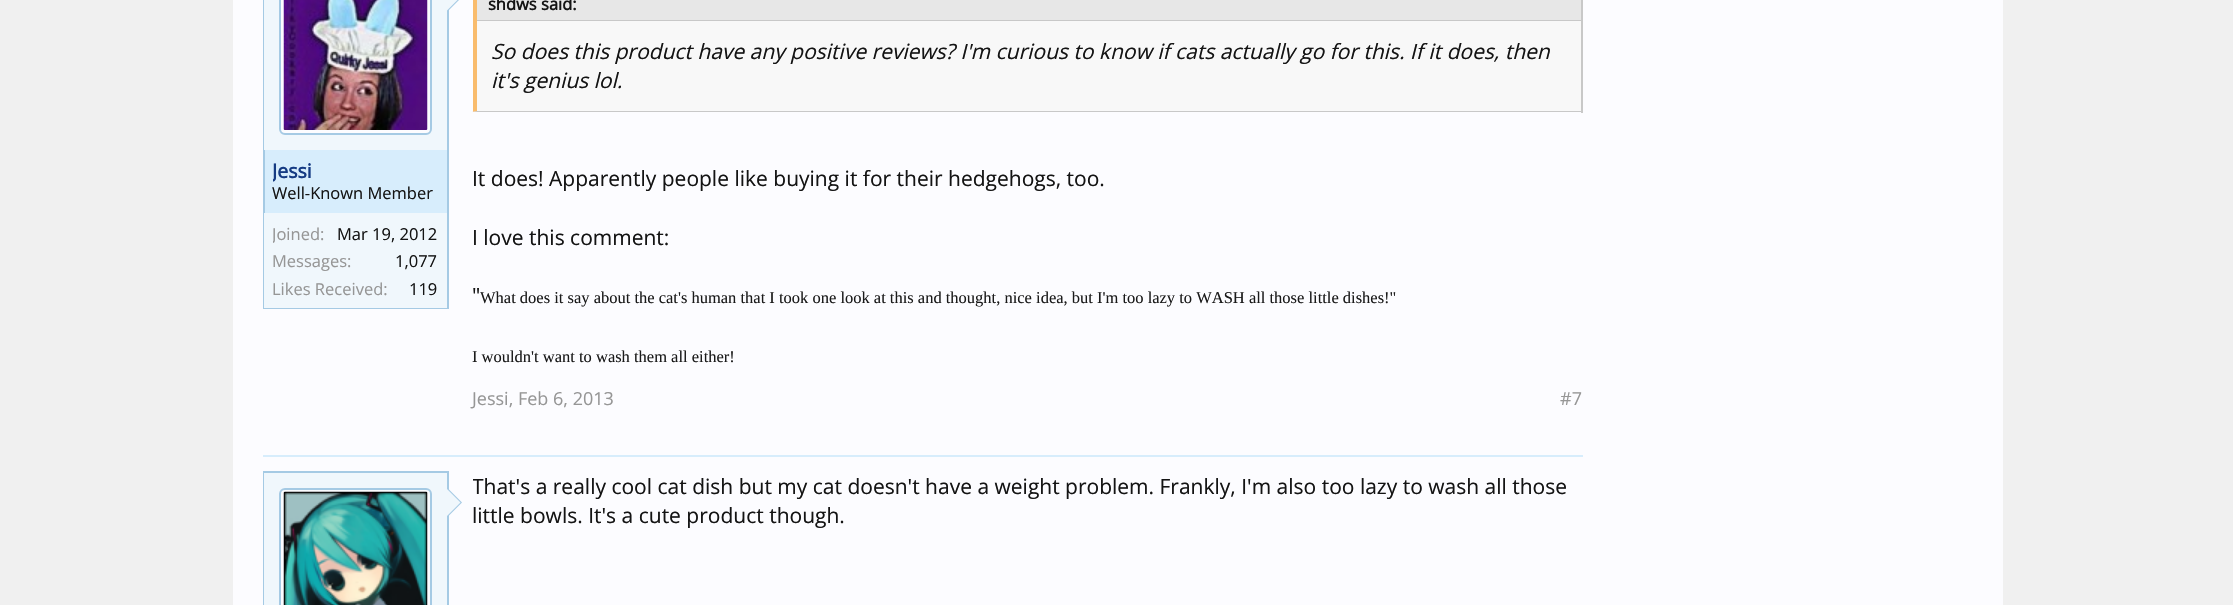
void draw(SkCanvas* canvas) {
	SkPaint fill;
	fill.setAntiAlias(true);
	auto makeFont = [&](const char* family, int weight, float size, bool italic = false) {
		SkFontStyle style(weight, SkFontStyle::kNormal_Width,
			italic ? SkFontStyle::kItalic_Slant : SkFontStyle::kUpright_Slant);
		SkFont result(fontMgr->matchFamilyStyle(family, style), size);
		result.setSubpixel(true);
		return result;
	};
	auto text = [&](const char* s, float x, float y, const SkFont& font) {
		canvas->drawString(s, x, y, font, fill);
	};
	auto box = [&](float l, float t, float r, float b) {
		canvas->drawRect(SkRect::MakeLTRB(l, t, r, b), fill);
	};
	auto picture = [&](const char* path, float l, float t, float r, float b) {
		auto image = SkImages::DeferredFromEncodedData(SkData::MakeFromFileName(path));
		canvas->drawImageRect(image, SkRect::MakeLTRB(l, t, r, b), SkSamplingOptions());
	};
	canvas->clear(0xFFF0F0F0);
	fill.setColor(0xFFFCFCFF);
	box(233, 0, 2003, 605);
	fill.setColor(0xFFD7EDFC);
	box(265, 150, 447, 213);
	fill.setStyle(SkPaint::kStroke_Style);
	fill.setStrokeWidth(2);
	fill.setColor(0xFFA5CAE4);
	canvas->drawRect(SkRect::MakeLTRB(264, -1, 448, 308), fill);
	fill.setStyle(SkPaint::kFill_Style);
	fill.setColor(0xFFF0F7FC);
	box(264, 0, 447, 150);
	fill.setColor(0xFFFCFCFF);
	canvas->drawRoundRect(SkRect::MakeLTRB(280, -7, 431, 134), 5, 5, fill);
	fill.setStyle(SkPaint::kStroke_Style);
	fill.setColor(0xFFA5CAE4);
	canvas->drawRoundRect(SkRect::MakeLTRB(280, -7, 431, 134), 5, 5, fill);
	picture("image0.png", 283, 0, 428, 130);
	fill.setStyle(SkPaint::kFill_Style);
	canvas->drawPath(SkPathBuilder().moveTo(447, 12).lineTo(447, -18).lineTo(462, -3).close().detach(), fill);
	fill.setColor(0xFFF0F7FC);
	canvas->drawPath(SkPathBuilder().moveTo(445.5f, 12).lineTo(445.5f, -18).lineTo(460.5f, -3).close().detach(), fill);
	box(264, 213, 447, 308);
	fill.setColor(0xFFC8C8C8);
	box(1581, 0, 1583, 113);
	canvas->drawPath(SkPathBuilder().moveTo(1582, 112).lineTo(472, 112).lineTo(477, 111).lineTo(1581, 111).close().detach(), fill);
	canvas->save();
	canvas->clipRect(SkRect::MakeLTRB(473, 0, 1583, 372));
	fill.setColor(0xFFF9BC6D);
	canvas->drawPath(SkPathBuilder().moveTo(472, 112).lineTo(472, -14).lineTo(477, -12).lineTo(477, 111).close().detach(), fill);
	canvas->restore();
	fill.setColor(0xFFE7E7E7);
	box(477, 0, 1581, 20);
	fill.setColor(0xFFC8C8C8);
	box(477, 20, 1581, 21);
	fill.setColor(0xFFF8F8F8);
	box(477, 21, 1581, 111);
	fill.setColor(0xFFD7EDFC);
	box(263, 455, 1583, 457);
	fill.setStyle(SkPaint::kStroke_Style);
	fill.setColor(0xFFA5CAE4);
	canvas->drawRect(SkRect::MakeLTRB(264, 472, 448, 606), fill);
	fill.setStyle(SkPaint::kFill_Style);
	fill.setColor(0xFFF0F7FC);
	box(264, 473, 447, 605);
	fill.setColor(0xFFFCFCFF);
	canvas->drawRoundRect(SkRect::MakeLTRB(280, 489, 431, 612), 5, 5, fill);
	fill.setStyle(SkPaint::kStroke_Style);
	fill.setColor(0xFFA5CAE4);
	canvas->drawRoundRect(SkRect::MakeLTRB(280, 489, 431, 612), 5, 5, fill);
	picture("image1.png", 283, 491, 428, 605);
	fill.setStyle(SkPaint::kFill_Style);
	canvas->drawPath(SkPathBuilder().moveTo(447, 517.5f).lineTo(447, 487.5f).lineTo(462, 502.5f).close().detach(), fill);
	fill.setColor(0xFFF0F7FC);
	canvas->drawPath(SkPathBuilder().moveTo(445.5f, 517.5f).lineTo(445.5f, 487.5f).lineTo(460.5f, 502.5f).close().detach(), fill);
	canvas->save();
	canvas->clipRect(SkRect::MakeLTRB(273, 159, 438, 183));
	auto font1 = makeFont("Open Sans", 700, 19.5f);
	fill.setColor(0xFF143A83);
	text("Jessi", 272, 178, font1);
	canvas->restore();
	auto font2 = makeFont("Open Sans", 400, 16.5f);
	fill.setColor(0xFF141414);
	text("Well-Known Member", 272, 199, font2);
	canvas->save();
	canvas->clipRect(SkRect::MakeLTRB(273, 222, 438, 246));
	fill.setColor(0xFF969696);
	text("Joined:", 272, 240, font2);
	canvas->restore();
	fill.setColor(0xFF141414);
	text("Mar 19, 2012", 337, 240, font2);
	fill.setColor(0xFF969696);
	text("Messages:", 272, 267, font2);
	fill.setColor(0xFF141414);
	text("1,077", 395, 267, font2);
	fill.setColor(0xFF969696);
	text("Likes Received:", 272, 295, font2);
	fill.setColor(0xFF141414);
	text("119", 409, 295, font2);
	auto font3 = makeFont("Open Sans", 700, 16.5f);
	text("shdws said:", 488, 10, font3);
	auto font4 = makeFont("Open Sans", 400, 21, true);
	text("So does this product have any positive reviews? I'm curious to know if cats actually go for this. If it does, then", 491, 59, font4);
	text("it's genius lol.", 491, 88, font4);
	auto font5 = makeFont("Open Sans", 400, 21);
	text("It does! Apparently people like buying it for their hedgehogs, too.", 472, 186, font5);
	text("I love this comment:", 472, 245, font5);
	text("\"", 472, 303, font5);
	auto font6 = makeFont("Liberation Serif", 400, 16.5f);
	fill.setColor(0xFF1A1A1A);
	text("What does it say about the cat's human that I took one look at this and thought, nice idea, but I'm too lazy to WASH all those little dishes!\"", 480, 303, font6);
	text("I wouldn't want to wash them all either!", 472, 362, font6);
	auto font7 = makeFont("Open Sans", 400, 18);
	fill.setColor(0xFF969696);
	text("Jessi, Feb 6, 2013", 472, 405, font7);
	text("#7", 1560, 405, font7);
	canvas->save();
	canvas->clipRect(SkRect::MakeLTRB(473, 471, 1583, 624));
	fill.setColor(0xFF141414);
	text("That's a really cool cat dish but my cat doesn't have a weight problem. Frankly, I'm also too lazy to wash all those", 472, 494, font5);
	canvas->restore();
	text("little bowls. It's a cute product though.", 472, 523, font5);
}
